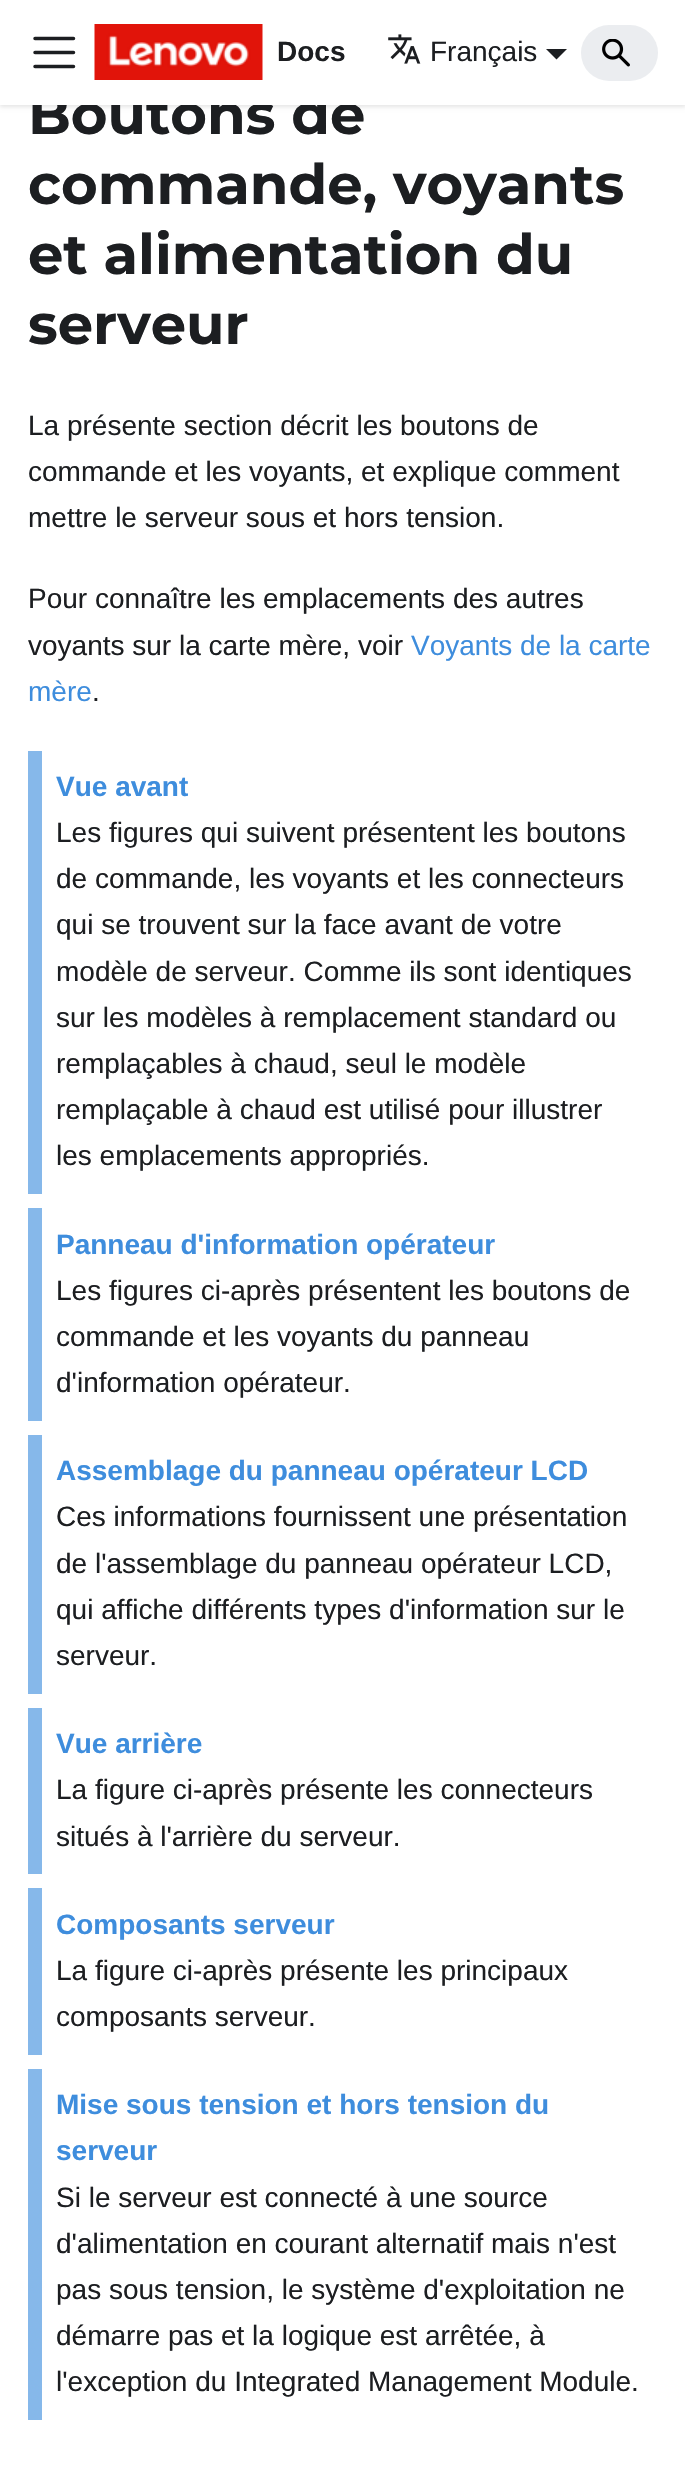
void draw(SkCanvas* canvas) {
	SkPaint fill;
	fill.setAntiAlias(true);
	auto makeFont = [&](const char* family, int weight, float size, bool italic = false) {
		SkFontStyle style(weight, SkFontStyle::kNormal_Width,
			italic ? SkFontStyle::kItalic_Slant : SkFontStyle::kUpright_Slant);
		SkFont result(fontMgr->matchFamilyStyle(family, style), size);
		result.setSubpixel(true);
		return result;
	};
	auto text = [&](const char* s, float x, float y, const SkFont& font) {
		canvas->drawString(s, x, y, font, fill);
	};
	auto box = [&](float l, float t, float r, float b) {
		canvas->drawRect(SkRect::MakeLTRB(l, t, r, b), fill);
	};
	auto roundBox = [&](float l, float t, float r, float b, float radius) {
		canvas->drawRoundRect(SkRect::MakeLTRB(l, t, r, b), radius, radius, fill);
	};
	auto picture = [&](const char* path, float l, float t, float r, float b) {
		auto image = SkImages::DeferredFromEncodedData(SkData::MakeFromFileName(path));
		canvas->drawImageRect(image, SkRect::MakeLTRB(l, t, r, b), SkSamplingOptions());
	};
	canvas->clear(0xFFFFFFFF);
	fill.setColor(0x1A000000);
	fill.setMaskFilter(SkMaskFilter::MakeBlur(kNormal_SkBlurStyle, 2));
	canvas->drawRect(SkRect::MakeLTRB(0, 2, 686, 107), fill);
	fill.setMaskFilter(nullptr);
	fill.setColor(0xFF86B8EA);
	box(28, 751, 42, 1194);
	box(28, 1208, 42, 1421);
	box(28, 1435, 42, 1694);
	box(28, 1708, 42, 1874);
	box(28, 1888, 42, 2055);
	box(28, 2069, 42, 2420);
	auto font1 = makeFont("Montserrat", 700, 56);
	fill.setColor(0xFF1C1E21);
	text("Boutons de", 28, 134, font1);
	fill.setColor(0xFFFFFFFF);
	box(0, 0, 685, 105);
	fill.setColor(0xFFEBEDF0);
	roundBox(581, 25, 658, 81, 28);
	picture("image2.png", 602, 39, 630, 67);
	fill.setColor(0xFF1C1E21);
	canvas->drawPath(SkPathBuilder().moveTo(546, 49).lineTo(567, 49).lineTo(556.5f, 59.5f).close().detach(), fill);
	picture("image1.png", 388, 34, 421, 64);
	auto font2 = makeFont("Liberation Sans", 400, 28);
	text("Français", 430, 61, font2);
	fill.setStyle(SkPaint::kStroke_Style);
	fill.setStrokeWidth(3.5f);
	fill.setStrokeCap(SkPaint::kRound_Cap);
	canvas->drawPath(SkPathBuilder().moveTo(35, 38.5f).lineTo(73.5f, 38.5f).moveTo(35, 52.5f).lineTo(73.5f, 52.5f).moveTo(35, 66.5f).lineTo(73.5f, 66.5f).detach(), fill);
	auto font3 = makeFont("Liberation Sans", 700, 28);
	fill.setStyle(SkPaint::kFill_Style);
	text("Docs", 277, 61, font3);
	picture("image0.png", 94, 24, 263, 80);
	text("commande, voyants", 28, 204, font1);
	text("et alimentation du", 28, 274, font1);
	text("serveur", 28, 344, font1);
	text("La présente section décrit les boutons de", 28, 435, font2);
	text("commande et les voyants, et explique comment", 28, 481, font2);
	text("mettre le serveur sous et hors tension.", 28, 527, font2);
	text("Pour connaître les emplacements des autres", 28, 608, font2);
	text("voyants sur la carte mère, voir", 28, 655, font2);
	fill.setColor(0xFF3E8DDD);
	text("Voyants de la carte", 411, 655, font2);
	text("mère", 28, 701, font2);
	fill.setColor(0xFF1C1E21);
	text(".", 92, 701, font2);
	fill.setColor(0xFF3E8DDD);
	text("Vue avant", 56, 796, font3);
	fill.setColor(0xFF1C1E21);
	text("Les figures qui suivent présentent les boutons", 56, 842, font2);
	text("de commande, les voyants et les connecteurs", 56, 888, font2);
	text("qui se trouvent sur la face avant de votre", 56, 934, font2);
	text("modèle de serveur. Comme ils sont identiques", 56, 981, font2);
	text("sur les modèles à remplacement standard ou", 56, 1027, font2);
	text("remplaçables à chaud, seul le modèle", 56, 1073, font2);
	text("remplaçable à chaud est utilisé pour illustrer", 56, 1119, font2);
	text("les emplacements appropriés.", 56, 1165, font2);
	fill.setColor(0xFF3E8DDD);
	text("Panneau d'information opérateur", 56, 1254, font3);
	fill.setColor(0xFF1C1E21);
	text("Les figures ci-après présentent les boutons de", 56, 1300, font2);
	text("commande et les voyants du panneau", 56, 1346, font2);
	text("d'information opérateur.", 56, 1392, font2);
	fill.setColor(0xFF3E8DDD);
	text("Assemblage du panneau opérateur LCD", 56, 1480, font3);
	fill.setColor(0xFF1C1E21);
	text("Ces informations fournissent une présentation", 56, 1526, font2);
	text("de l'assemblage du panneau opérateur LCD,", 56, 1573, font2);
	text("qui affiche différents types d'information sur le", 56, 1619, font2);
	text("serveur.", 56, 1665, font2);
	fill.setColor(0xFF3E8DDD);
	text("Vue arrière", 56, 1753, font3);
	fill.setColor(0xFF1C1E21);
	text("La figure ci-après présente les connecteurs", 56, 1799, font2);
	text("situés à l'arrière du serveur.", 56, 1846, font2);
	fill.setColor(0xFF3E8DDD);
	text("Composants serveur", 56, 1934, font3);
	fill.setColor(0xFF1C1E21);
	text("La figure ci-après présente les principaux", 56, 1980, font2);
	text("composants serveur.", 56, 2026, font2);
	fill.setColor(0xFF3E8DDD);
	text("Mise sous tension et hors tension du", 56, 2114, font3);
	text("serveur", 56, 2160, font3);
	fill.setColor(0xFF1C1E21);
	text("Si le serveur est connecté à une source", 56, 2207, font2);
	text("d'alimentation en courant alternatif mais n'est", 56, 2253, font2);
	text("pas sous tension, le système d'exploitation ne", 56, 2299, font2);
	text("démarre pas et la logique est arrêtée, à", 56, 2345, font2);
	text("l'exception du Integrated Management Module.", 56, 2391, font2);
}
